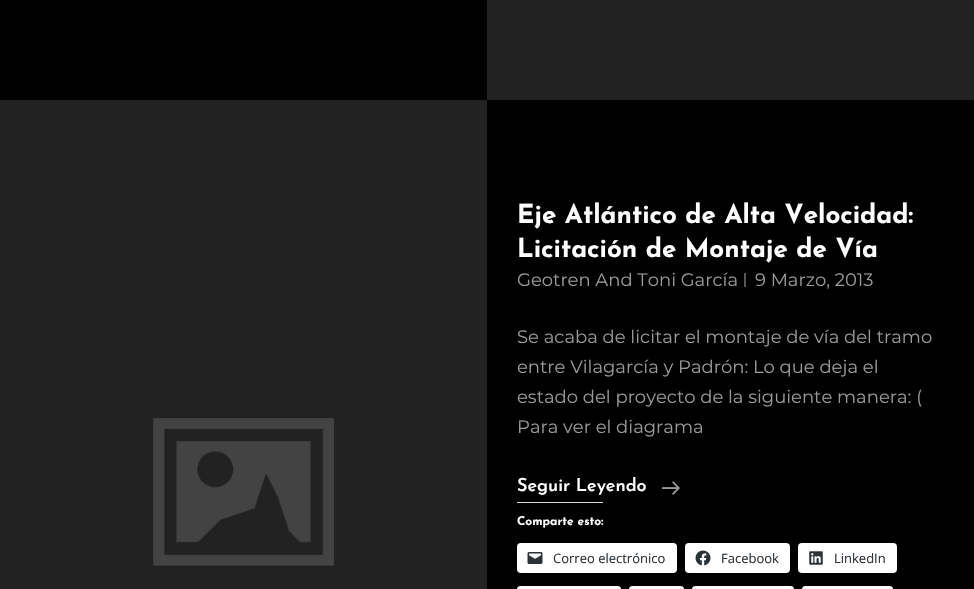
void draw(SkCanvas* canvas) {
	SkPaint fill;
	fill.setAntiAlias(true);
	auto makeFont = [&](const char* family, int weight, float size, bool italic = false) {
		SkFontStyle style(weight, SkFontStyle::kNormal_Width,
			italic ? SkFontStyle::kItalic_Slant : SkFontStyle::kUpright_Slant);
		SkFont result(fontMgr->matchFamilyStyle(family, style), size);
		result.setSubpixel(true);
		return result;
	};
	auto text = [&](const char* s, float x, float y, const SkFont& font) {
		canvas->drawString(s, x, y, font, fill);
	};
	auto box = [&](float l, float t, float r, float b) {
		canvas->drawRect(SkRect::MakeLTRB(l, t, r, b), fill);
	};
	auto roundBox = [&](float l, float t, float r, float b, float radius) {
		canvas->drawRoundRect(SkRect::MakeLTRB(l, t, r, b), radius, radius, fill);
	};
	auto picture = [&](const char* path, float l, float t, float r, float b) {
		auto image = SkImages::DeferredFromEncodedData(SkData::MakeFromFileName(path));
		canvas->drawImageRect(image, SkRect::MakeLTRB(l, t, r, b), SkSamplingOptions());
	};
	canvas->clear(0xFF000000);
	fill.setColor(0xFF222222);
	box(487, 0, 974, 100);
	picture("image0.png", 0, 100, 487, 589);
	fill.setColor(0xFF555555);
	box(744, 273, 746, 287);
	picture("image1.png", 662, 481, 680, 495);
	fill.setColor(0xFFDCDCDE);
	box(517, 502, 603, 503);
	fill.setColor(0xFFFFFFFF);
	roundBox(517, 543, 677, 573, 4);
	picture("image2.png", 527, 552, 543, 564);
	roundBox(685, 543, 790, 573, 4);
	picture("image3.png", 695, 550, 711, 566);
	roundBox(798, 543, 897, 573, 4);
	picture("image4.png", 809, 551, 823, 565);
	roundBox(517, 586, 621, 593, 4);
	roundBox(629, 586, 684, 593, 4);
	roundBox(692, 586, 794, 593, 4);
	roundBox(802, 586, 893, 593, 4);
	auto font1 = makeFont("Josefin Sans", 700, 26);
	text("Eje Atlántico de Alta Velocidad:", 517, 223, font1);
	text("Licitación de Montaje de Vía", 517, 257, font1);
	auto font2 = makeFont("Montserrat", 400, 18);
	fill.setColor(0xFF999999);
	text("Geotren And Toni García", 517, 286, font2);
	text("9 Marzo, 2013", 755, 286, font2);
	text("Se acaba de licitar el montaje de vía del tramo", 517, 343, font2);
	text("entre Vilagarcía y Padrón: Lo que deja el", 517, 373, font2);
	text("estado del proyecto de la siguiente manera: (", 517, 403, font2);
	text("Para ver el diagrama", 517, 433, font2);
	auto font3 = makeFont("Josefin Sans", 600, 18);
	fill.setColor(0xFFFFFFFF);
	text("Seguir Leyendo", 517, 491, font3);
	auto font4 = makeFont("Josefin Sans", 700, 12);
	text("Comparte esto:", 517, 525, font4);
	auto font5 = makeFont("Open Sans", 400, 13);
	fill.setColor(0xFF2C3338);
	text("Correo electrónico", 553, 563, font5);
	text("Facebook", 721, 563, font5);
	text("LinkedIn", 834, 563, font5);
}
